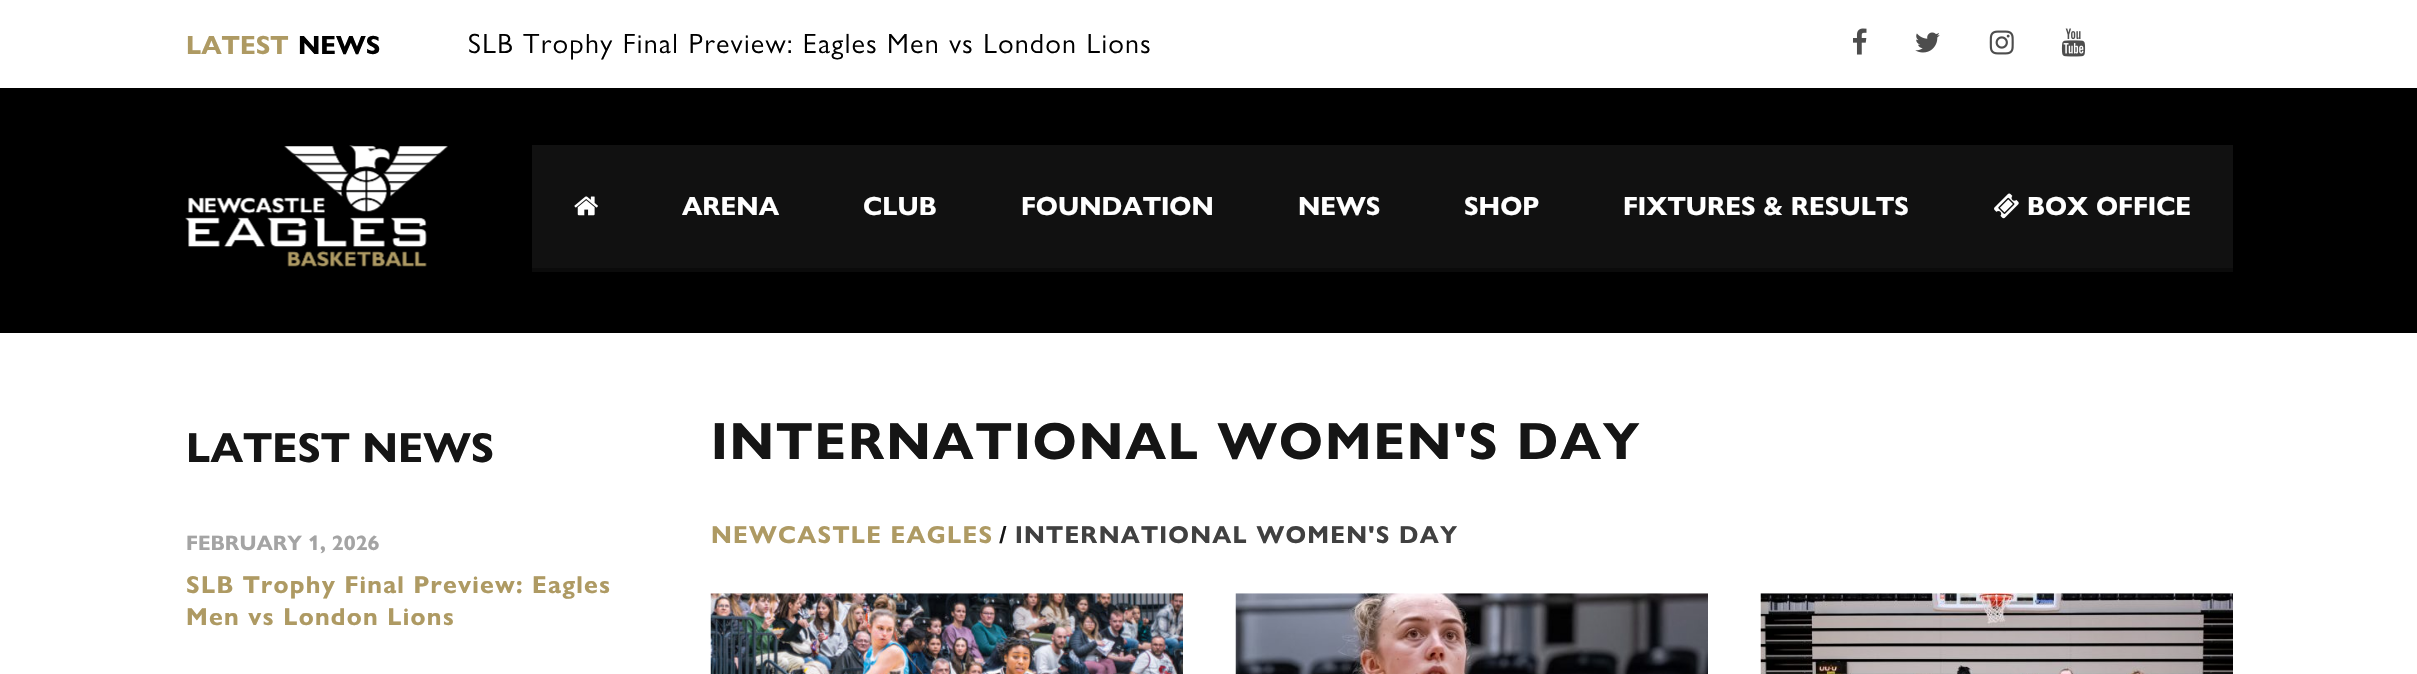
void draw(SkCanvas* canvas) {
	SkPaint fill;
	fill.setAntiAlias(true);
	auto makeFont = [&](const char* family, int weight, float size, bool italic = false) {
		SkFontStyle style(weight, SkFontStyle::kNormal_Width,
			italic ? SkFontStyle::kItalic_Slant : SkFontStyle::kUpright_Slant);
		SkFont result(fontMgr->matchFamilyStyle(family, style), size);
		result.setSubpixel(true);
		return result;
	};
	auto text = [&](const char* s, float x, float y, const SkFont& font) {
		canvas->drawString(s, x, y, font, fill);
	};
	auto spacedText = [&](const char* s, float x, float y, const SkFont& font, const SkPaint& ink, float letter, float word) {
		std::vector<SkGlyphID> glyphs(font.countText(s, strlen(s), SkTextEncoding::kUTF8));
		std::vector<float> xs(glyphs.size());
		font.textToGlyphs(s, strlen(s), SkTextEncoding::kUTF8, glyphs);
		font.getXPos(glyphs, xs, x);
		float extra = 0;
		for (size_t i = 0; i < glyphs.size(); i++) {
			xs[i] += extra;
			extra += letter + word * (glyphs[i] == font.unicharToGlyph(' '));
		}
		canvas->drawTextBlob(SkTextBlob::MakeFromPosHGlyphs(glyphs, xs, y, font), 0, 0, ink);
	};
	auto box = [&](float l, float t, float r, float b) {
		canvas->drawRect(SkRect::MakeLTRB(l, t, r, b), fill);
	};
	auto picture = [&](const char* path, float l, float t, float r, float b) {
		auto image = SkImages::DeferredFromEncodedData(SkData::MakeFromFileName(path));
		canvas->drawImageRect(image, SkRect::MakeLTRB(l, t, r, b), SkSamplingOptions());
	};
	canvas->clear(0xFFFFFFFF);
	picture("image0.png", 1853, 28, 1867, 55);
	picture("image1.png", 1915, 32, 1940, 53);
	picture("image2.png", 1989, 30, 2014, 55);
	picture("image3.png", 2061, 28, 2086, 57);
	fill.setColor(0xFF000000);
	box(0, 88, 2417, 333);
	picture("image4.png", 185, 145, 448, 267);
	fill.setColor(0xFF111111);
	box(532, 145, 2233, 268);
	picture("image5.png", 574, 196, 598, 216);
	picture("image6.png", 1994, 193, 2019, 219);
	fill.setColor(0xFF0B0B0B);
	box(532, 268, 2233, 272);
	picture("image7.png", 710, 593, 1183, 674);
	picture("image8.png", 1235, 593, 1708, 674);
	picture("image9.png", 1760, 593, 2233, 674);
	auto font1 = makeFont("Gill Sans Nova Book", 700, 26.25f);
	fill.setColor(0xFFAE9A63);
	text("LATEST", 186, 54, font1);
	fill.setColor(0xFF000000);
	text("NEWS", 298, 54, font1);
	auto font2 = makeFont("Gill Sans Nova Book", 400, 28);
	spacedText("SLB Trophy Final Preview: Eagles Men vs London Lions", 468, 53, font2, fill, 1.4f, 0);
	fill.setColor(0xFFFFFFFF);
	text("ARENA", 682, 215, font1);
	text("CLUB", 863, 215, font1);
	text("FOUNDATION", 1021, 215, font1);
	text("NEWS", 1298, 215, font1);
	text("SHOP", 1464, 215, font1);
	text("FIXTURES & RESULTS", 1623, 215, font1);
	text("BOX OFFICE", 2027, 215, font1);
	auto font3 = makeFont("Gill Sans Nova Book", 700, 42);
	fill.setColor(0xFF151515);
	text("LATEST NEWS", 186, 462, font3);
	auto font4 = makeFont("Gill Sans Nova Book", 700, 21);
	fill.setColor(0xFFA4A4A4);
	text("FEBRUARY 1, 2026", 186, 550, font4);
	auto font5 = makeFont("Gill Sans Nova Book", 700, 24.5f);
	fill.setColor(0xFFAE9A63);
	spacedText("SLB Trophy Final Preview: Eagles", 186, 593, font5, fill, 1.25f, 0);
	spacedText("Men vs London Lions", 186, 625, font5, fill, 1.25f, 0);
	auto font6 = makeFont("Gill Sans Nova Book", 700, 52.5f);
	fill.setColor(0xFF151515);
	spacedText("INTERNATIONAL WOMEN'S DAY", 711, 459, font6, fill, 1.9f, 0);
	fill.setColor(0xFFAE9A63);
	spacedText("NEWCASTLE EAGLES", 711, 543, font5, fill, 1.25f, 0);
	fill.setColor(0xFF151515);
	spacedText("/", 999, 543, font5, fill, 1.25f, 0);
	fill.setColor(0xFF404040);
	spacedText("INTERNATIONAL WOMEN'S DAY", 1015, 543, font5, fill, 1.25f, 0);
}
